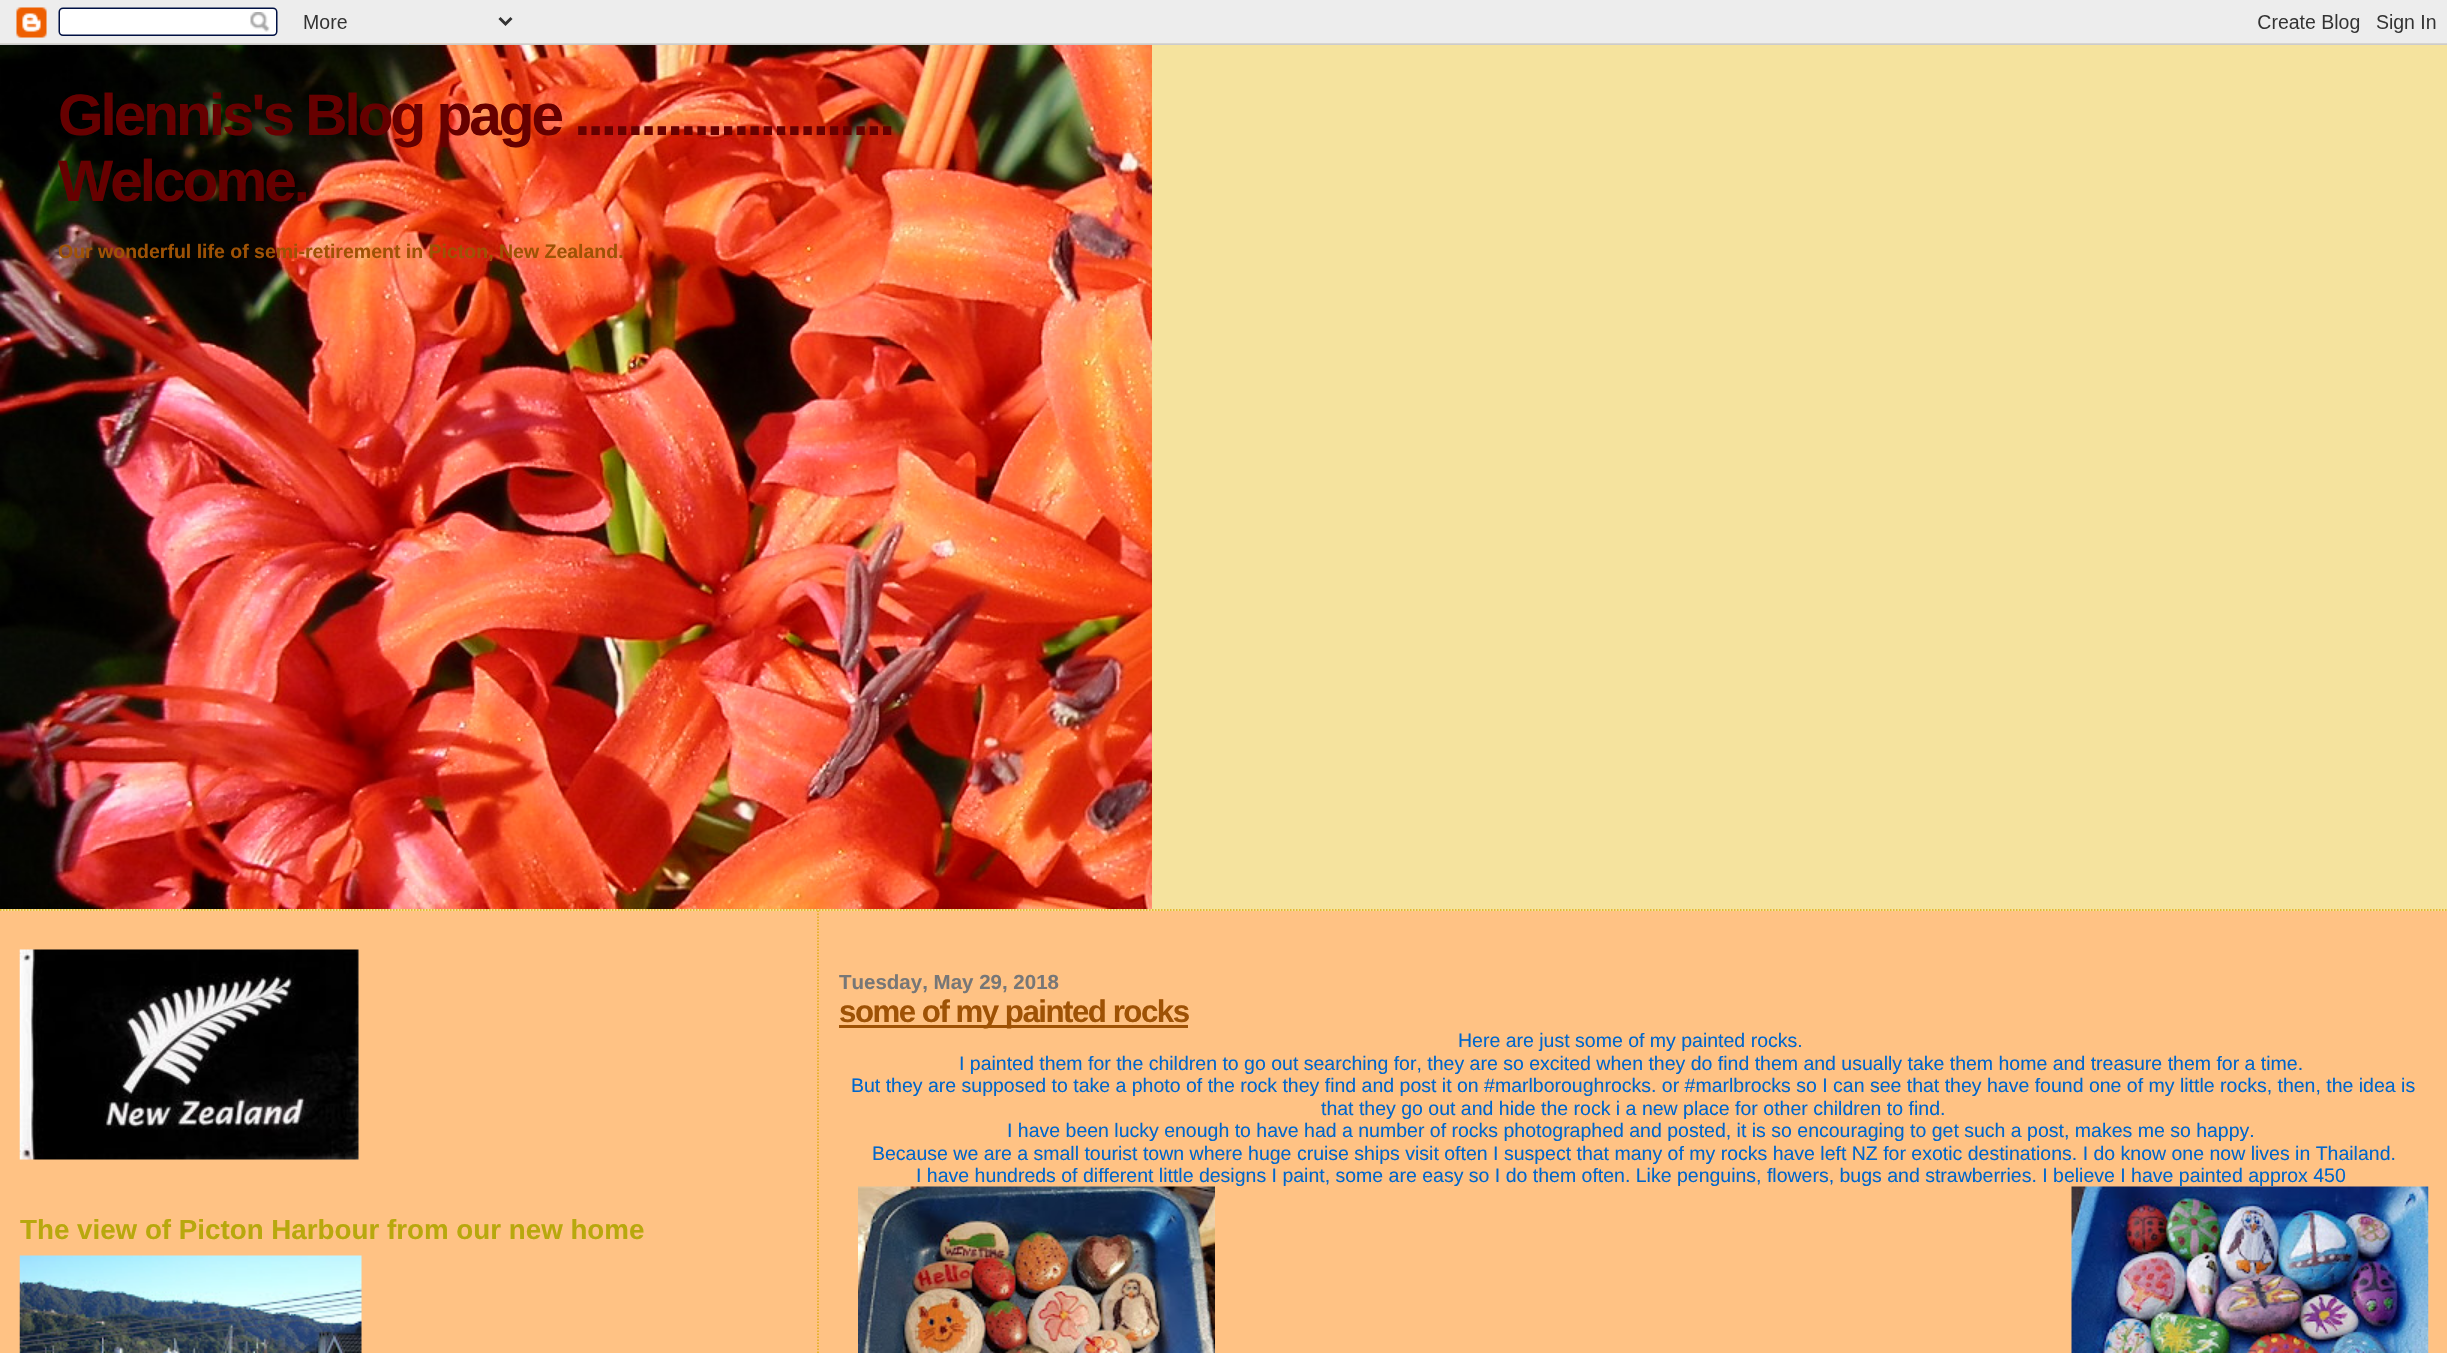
void draw(SkCanvas* canvas) {
	SkPaint fill;
	fill.setAntiAlias(true);
	auto makeFont = [&](const char* family, int weight, float size, bool italic = false) {
		SkFontStyle style(weight, SkFontStyle::kNormal_Width,
			italic ? SkFontStyle::kItalic_Slant : SkFontStyle::kUpright_Slant);
		SkFont result(fontMgr->matchFamilyStyle(family, style), size);
		result.setSubpixel(true);
		return result;
	};
	auto text = [&](const char* s, float x, float y, const SkFont& font) {
		canvas->drawString(s, x, y, font, fill);
	};
	auto spacedText = [&](const char* s, float x, float y, const SkFont& font, const SkPaint& ink, float letter, float word) {
		std::vector<SkGlyphID> glyphs(font.countText(s, strlen(s), SkTextEncoding::kUTF8));
		std::vector<float> xs(glyphs.size());
		font.textToGlyphs(s, strlen(s), SkTextEncoding::kUTF8, glyphs);
		font.getXPos(glyphs, xs, x);
		float extra = 0;
		for (size_t i = 0; i < glyphs.size(); i++) {
			xs[i] += extra;
			extra += letter + word * (glyphs[i] == font.unicharToGlyph(' '));
		}
		canvas->drawTextBlob(SkTextBlob::MakeFromPosHGlyphs(glyphs, xs, y, font), 0, 0, ink);
	};
	auto box = [&](float l, float t, float r, float b) {
		canvas->drawRect(SkRect::MakeLTRB(l, t, r, b), fill);
	};
	auto picture = [&](const char* path, float l, float t, float r, float b) {
		auto image = SkImages::DeferredFromEncodedData(SkData::MakeFromFileName(path));
		canvas->drawImageRect(image, SkRect::MakeLTRB(l, t, r, b), SkSamplingOptions());
	};
	canvas->clear(0xFFFFC284);
	picture("image0.png", 0, 0, 2447, 45);
	fill.setColor(0xFFF5E39E);
	box(0, 45, 2447, 911);
	fill.setStyle(SkPaint::kStroke_Style);
	fill.setStrokeWidth(1.5f);
	fill.setColor(0xFFE0AD12);
	fill.setPathEffect(SkDashPathEffect::Make({{1.5f, 1.5f}}, 0));
	canvas->drawPath(SkPathBuilder().moveTo(0, 910).lineTo(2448, 910).detach(), fill);
	fill.setPathEffect(nullptr);
	picture("image1.png", 0, 45, 1152, 909);
	fill.setPathEffect(SkDashPathEffect::Make({{1.5f, 1.5f}}, 0));
	canvas->drawPath(SkPathBuilder().moveTo(818, 910.5f).lineTo(818, 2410.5f).detach(), fill);
	fill.setPathEffect(nullptr);
	fill.setStyle(SkPaint::kFill_Style);
	fill.setColor(0xFF9E5205);
	box(839, 1025, 1188, 1028);
	picture("image3.png", 2071, 1186, 2429, 1353);
	picture("image4.png", 19, 949, 359, 1160);
	picture("image5.png", 19, 1255, 362, 1353);
	auto font1 = makeFont("Liberation Sans", 700, 58.5f);
	fill.setColor(0xFF660000);
	spacedText("Glennis's Blog page ........................", 58, 135, font1, fill, -3, 0);
	spacedText("Welcome.", 58, 201, font1, fill, -3, 0);
	auto font2 = makeFont("Liberation Sans", 700, 19.5f);
	fill.setColor(0xFF9E5205);
	text("Our wonderful life of semi-retirement in Picton, New Zealand.", 58, 258, font2);
	auto font3 = makeFont("Liberation Sans", 700, 20.5f);
	fill.setColor(0xFF777777);
	text("Tuesday, May 29, 2018", 839, 989, font3);
	auto font4 = makeFont("Liberation Sans", 700, 31.25f);
	fill.setColor(0xFF9E5205);
	spacedText("some of my painted rocks", 839, 1022, font4, fill, -1.5f, 0);
	auto font5 = makeFont("Liberation Sans", 400, 19.5f);
	fill.setColor(0xFF0066CC);
	text("Here are just some of my painted rocks.", 1458, 1047, font5);
	text("I painted them for the children to go out searching for, they are so excited when they do find them and usually take them home and treasure them for a time.", 959, 1070, font5);
	text("But they are supposed to take a photo of the rock they find and post it on #marlboroughrocks. or #marlbrocks so I can see that they have found one of my little rocks, then, the idea is", 851, 1092, font5);
	text("that they go out and hide the rock i a new place for other children to find.", 1321, 1115, font5);
	text("I have been lucky enough to have had a number of rocks photographed and posted, it is so encouraging to get such a post, makes me so happy.", 1007, 1137, font5);
	text("Because we are a small tourist town where huge cruise ships visit often I suspect that many of my rocks have left NZ for exotic destinations. I do know one now lives in Thailand.", 872, 1160, font5);
	text("I have hundreds of different little designs I paint, some are easy so I do them often. Like penguins, flowers, bugs and strawberries. I believe I have painted approx 450", 916, 1182, font5);
	picture("image2.png", 858, 1186, 1215, 1353);
	canvas->save();
	canvas->clipRect(SkRect::MakeLTRB(20, 941, 767, 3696));
	auto font6 = makeFont("Liberation Sans", 700, 27.75f);
	fill.setColor(0xFFB8A80D);
	text("The view of Picton Harbour from our new home", 20, 1239, font6);
	canvas->restore();
}
